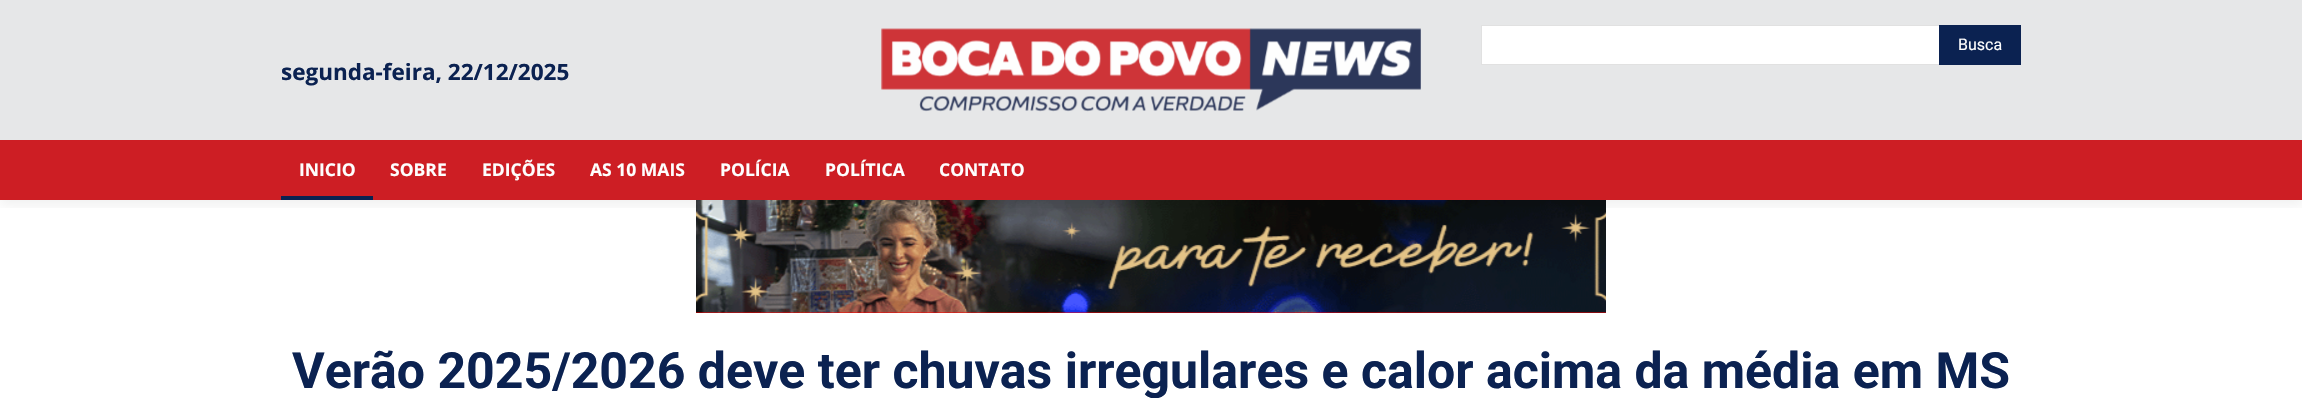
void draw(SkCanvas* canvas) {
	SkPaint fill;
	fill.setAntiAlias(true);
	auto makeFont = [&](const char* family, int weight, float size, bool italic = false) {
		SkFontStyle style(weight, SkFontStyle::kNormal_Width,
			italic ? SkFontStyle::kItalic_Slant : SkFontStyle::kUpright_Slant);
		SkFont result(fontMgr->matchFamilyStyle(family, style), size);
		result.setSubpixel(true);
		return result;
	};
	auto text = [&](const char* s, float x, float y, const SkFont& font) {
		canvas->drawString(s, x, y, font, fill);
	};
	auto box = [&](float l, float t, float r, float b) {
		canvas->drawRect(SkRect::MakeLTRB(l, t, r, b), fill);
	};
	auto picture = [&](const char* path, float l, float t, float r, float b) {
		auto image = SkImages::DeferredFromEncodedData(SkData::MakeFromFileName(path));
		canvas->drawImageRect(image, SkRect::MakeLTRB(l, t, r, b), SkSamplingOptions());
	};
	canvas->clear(0xFFFFFFFF);
	fill.setColor(0xFFE6E7E8);
	box(0, 0, 2302, 140);
	picture("image0.png", 881, 28, 1421, 112);
	fill.setColor(0xFFFFFFFF);
	box(1482, 26, 1939, 64);
	fill.setStyle(SkPaint::kStroke_Style);
	fill.setStrokeWidth(1);
	fill.setColor(0xFFE1E1E1);
	canvas->drawRect(SkRect::MakeLTRB(1481.5f, 25.5f, 2020.5f, 64.5f), fill);
	fill.setStyle(SkPaint::kFill_Style);
	fill.setColor(0xFF0B2251);
	box(1939, 25, 2021, 65);
	fill.setColor(0xFFCD1E24);
	box(0, 140, 2302, 200);
	fill.setColor(0xFFFF0000);
	box(696, 312, 1606, 313);
	picture("image1.png", 696, 200, 1606, 313);
	canvas->save();
	canvas->clipRect(SkRect::MakeLTRB(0, 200, 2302, 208));
	fill.setColor(0x0F000000);
	fill.setMaskFilter(SkMaskFilter::MakeBlur(kNormal_SkBlurStyle, 6));
	canvas->drawRect(SkRect::MakeLTRB(0, 5, 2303, 205), fill);
	fill.setMaskFilter(nullptr);
	canvas->restore();
	fill.setColor(0xFF0B2251);
	box(281, 196, 373, 200);
	auto font1 = makeFont("Roboto", 400, 16);
	fill.setColor(0xFFFEFEFE);
	text("Busca", 1958, 50, font1);
	auto font2 = makeFont("Open Sans", 700, 22.5f);
	fill.setColor(0xFF0B2251);
	text("segunda-feira, 22/12/2025", 281, 80, font2);
	auto font3 = makeFont("Open Sans", 700, 17.5f);
	fill.setColor(0xFFFEFEFE);
	text("INICIO", 299, 176, font3);
	text("SOBRE", 390, 176, font3);
	text("EDIÇÕES", 482, 176, font3);
	text("AS 10 MAIS", 590, 176, font3);
	text("POLÍCIA", 720, 176, font3);
	text("POLÍTICA", 825, 176, font3);
	text("CONTATO", 939, 176, font3);
	auto font4 = makeFont("Roboto", 700, 50);
	fill.setColor(0xFF0B2251);
	text("Verão 2025/2026 deve ter chuvas irregulares e calor acima da média em MS", 292, 388, font4);
}
